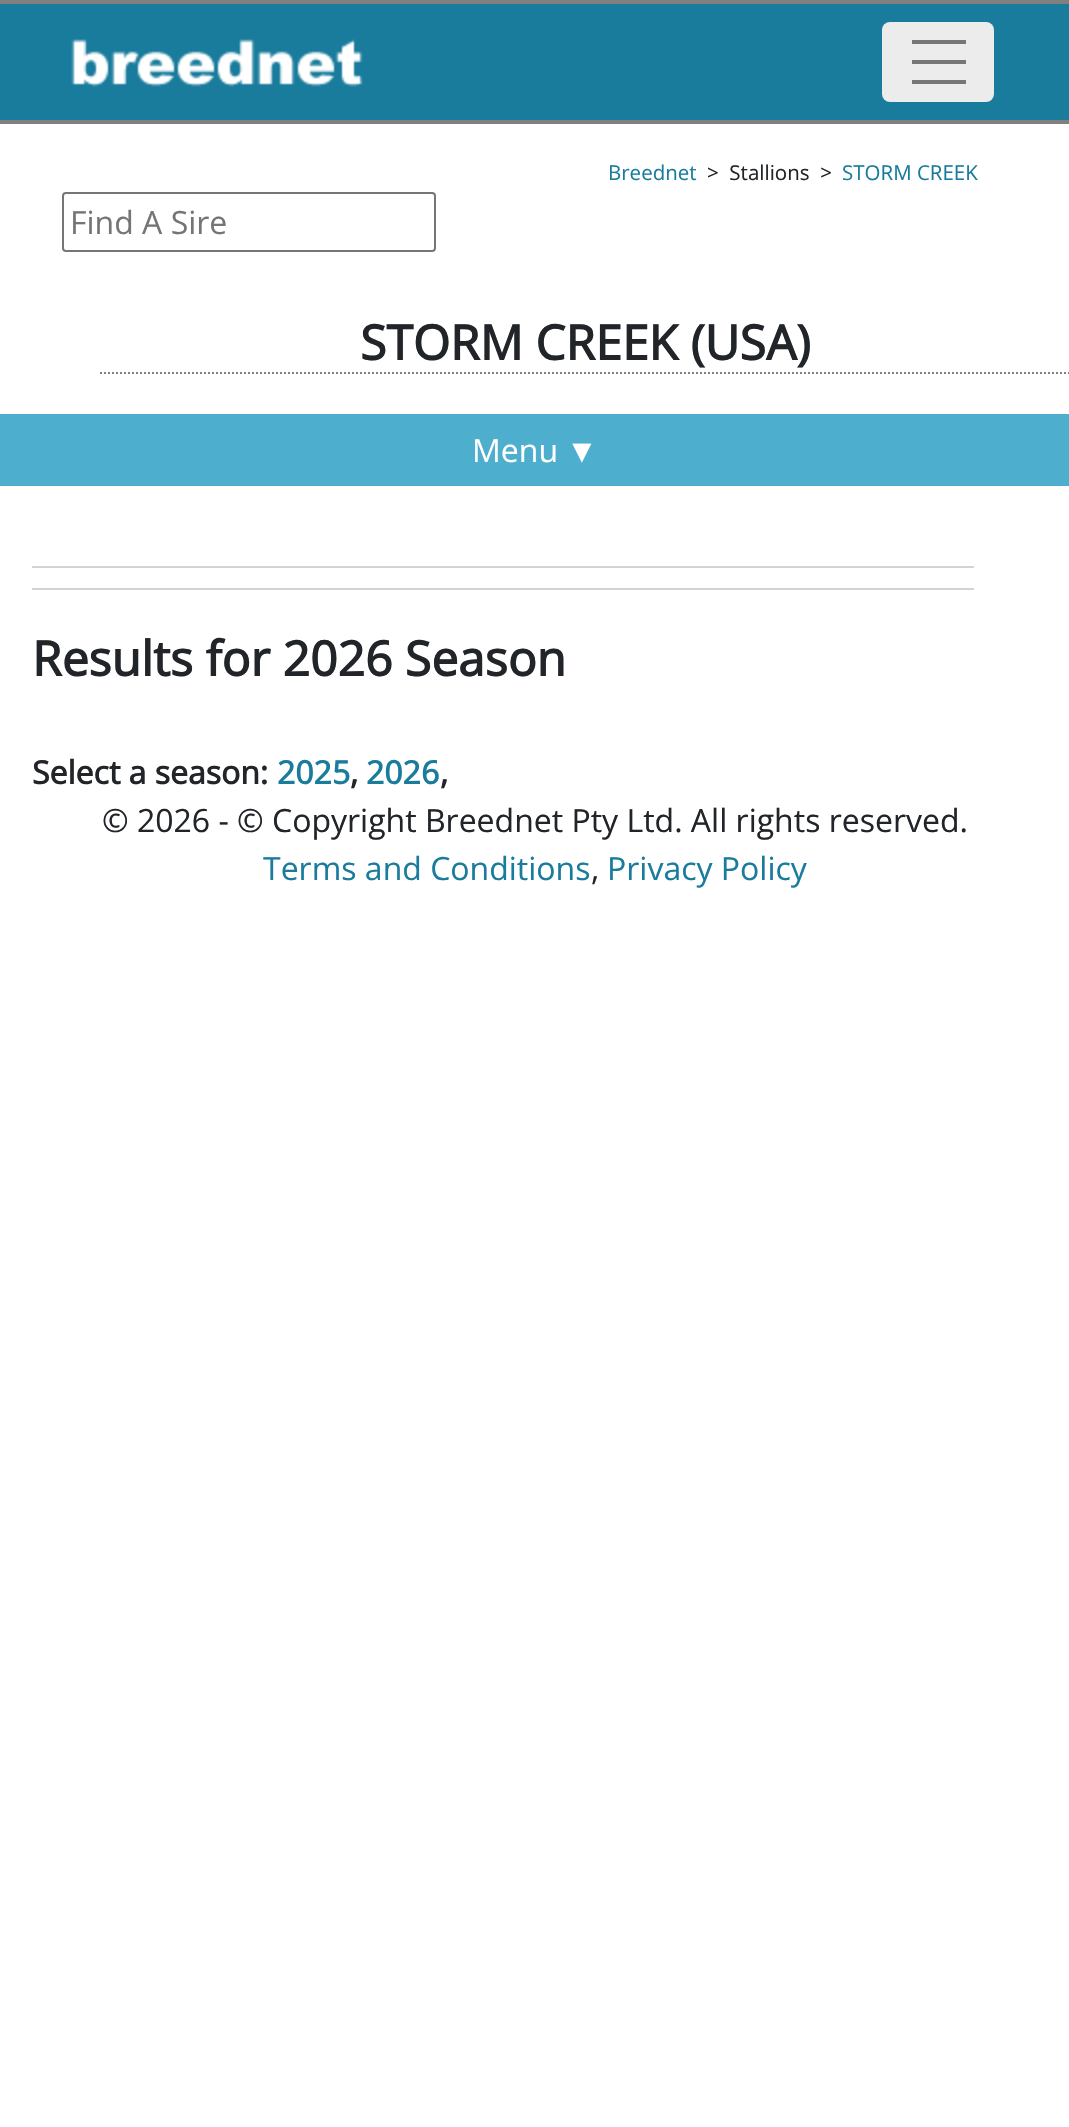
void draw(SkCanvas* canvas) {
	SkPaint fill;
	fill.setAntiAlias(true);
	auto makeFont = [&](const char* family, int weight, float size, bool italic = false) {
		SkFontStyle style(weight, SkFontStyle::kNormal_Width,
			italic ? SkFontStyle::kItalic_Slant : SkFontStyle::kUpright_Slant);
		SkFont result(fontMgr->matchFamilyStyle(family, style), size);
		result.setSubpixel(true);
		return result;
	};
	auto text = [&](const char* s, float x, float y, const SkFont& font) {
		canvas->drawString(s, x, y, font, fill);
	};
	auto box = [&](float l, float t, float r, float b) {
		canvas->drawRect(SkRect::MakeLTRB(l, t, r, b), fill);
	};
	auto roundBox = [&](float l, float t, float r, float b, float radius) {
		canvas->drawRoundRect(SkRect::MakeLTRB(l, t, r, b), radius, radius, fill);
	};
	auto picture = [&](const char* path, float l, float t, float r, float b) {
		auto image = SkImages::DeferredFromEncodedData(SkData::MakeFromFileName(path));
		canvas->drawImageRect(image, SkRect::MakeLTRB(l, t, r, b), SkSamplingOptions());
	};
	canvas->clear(0xFFFFFFFF);
	fill.setColor(0xFF808080);
	box(0, 0, 1069, 4);
	box(0, 120, 1069, 124);
	fill.setColor(0xFF1A7C9C);
	box(0, 4, 1069, 120);
	picture("image0.png", 71, 39, 363, 87);
	fill.setColor(0xFFECECEC);
	roundBox(882, 22, 994, 102, 8);
	fill.setColor(0xFF767676);
	box(912, 40, 966, 44);
	box(912, 60, 966, 64);
	box(912, 80, 966, 84);
	fill.setStyle(SkPaint::kStroke_Style);
	fill.setStrokeWidth(2);
	canvas->drawRoundRect(SkRect::MakeLTRB(63, 193, 435, 251), 3, 3, fill);
	fill.setColor(0xFF808080);
	fill.setPathEffect(SkDashPathEffect::Make({{2, 2}}, 0));
	canvas->drawPath(SkPathBuilder().moveTo(100, 373).lineTo(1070, 373).detach(), fill);
	fill.setPathEffect(nullptr);
	fill.setStyle(SkPaint::kFill_Style);
	fill.setColor(0xFF4DAECE);
	box(0, 414, 1069, 486);
	fill.setColor(0xFFD3D3D3);
	box(32, 566, 974, 568);
	box(32, 588, 974, 590);
	auto font1 = makeFont("Open Sans", 400, 20.5f);
	fill.setColor(0xFF1A7C9C);
	text("Breednet", 608, 180, font1);
	fill.setColor(0xFF212529);
	text(">  Stallions  >", 707, 180, font1);
	fill.setColor(0xFF1A7C9C);
	text("STORM CREEK", 842, 180, font1);
	auto font2 = makeFont("Open Sans", 400, 32);
	fill.setColor(0xFF757575);
	text("Find A Sire", 70, 234, font2);
	auto font3 = makeFont("Open Sans", 700, 48);
	fill.setColor(0xFF212529);
	text("STORM CREEK (USA)", 360, 360, font3);
	fill.setColor(0xFFFFFFFF);
	text("Menu", 472, 462, font2);
	auto font4 = makeFont("Liberation Serif", 400, 32);
	text("▼", 566, 462, font4);
	fill.setColor(0xFF212529);
	text("Results for 2026 Season", 32, 676, font3);
	auto font5 = makeFont("Open Sans", 700, 32);
	text("Select a season:", 32, 784, font5);
	fill.setColor(0xFF1A7C9C);
	text("2025", 277, 784, font5);
	fill.setColor(0xFF212529);
	text(",", 350, 784, font5);
	fill.setColor(0xFF1A7C9C);
	text("2026", 366, 784, font5);
	fill.setColor(0xFF212529);
	text(",", 440, 784, font5);
	text("© 2026 - © Copyright Breednet Pty Ltd. All rights reserved.", 102, 832, font2);
	fill.setColor(0xFF1A7C9C);
	text("Terms and Conditions", 263, 880, font2);
	fill.setColor(0xFF212529);
	text(",", 591, 880, font2);
	fill.setColor(0xFF1A7C9C);
	text("Privacy Policy", 607, 880, font2);
}
